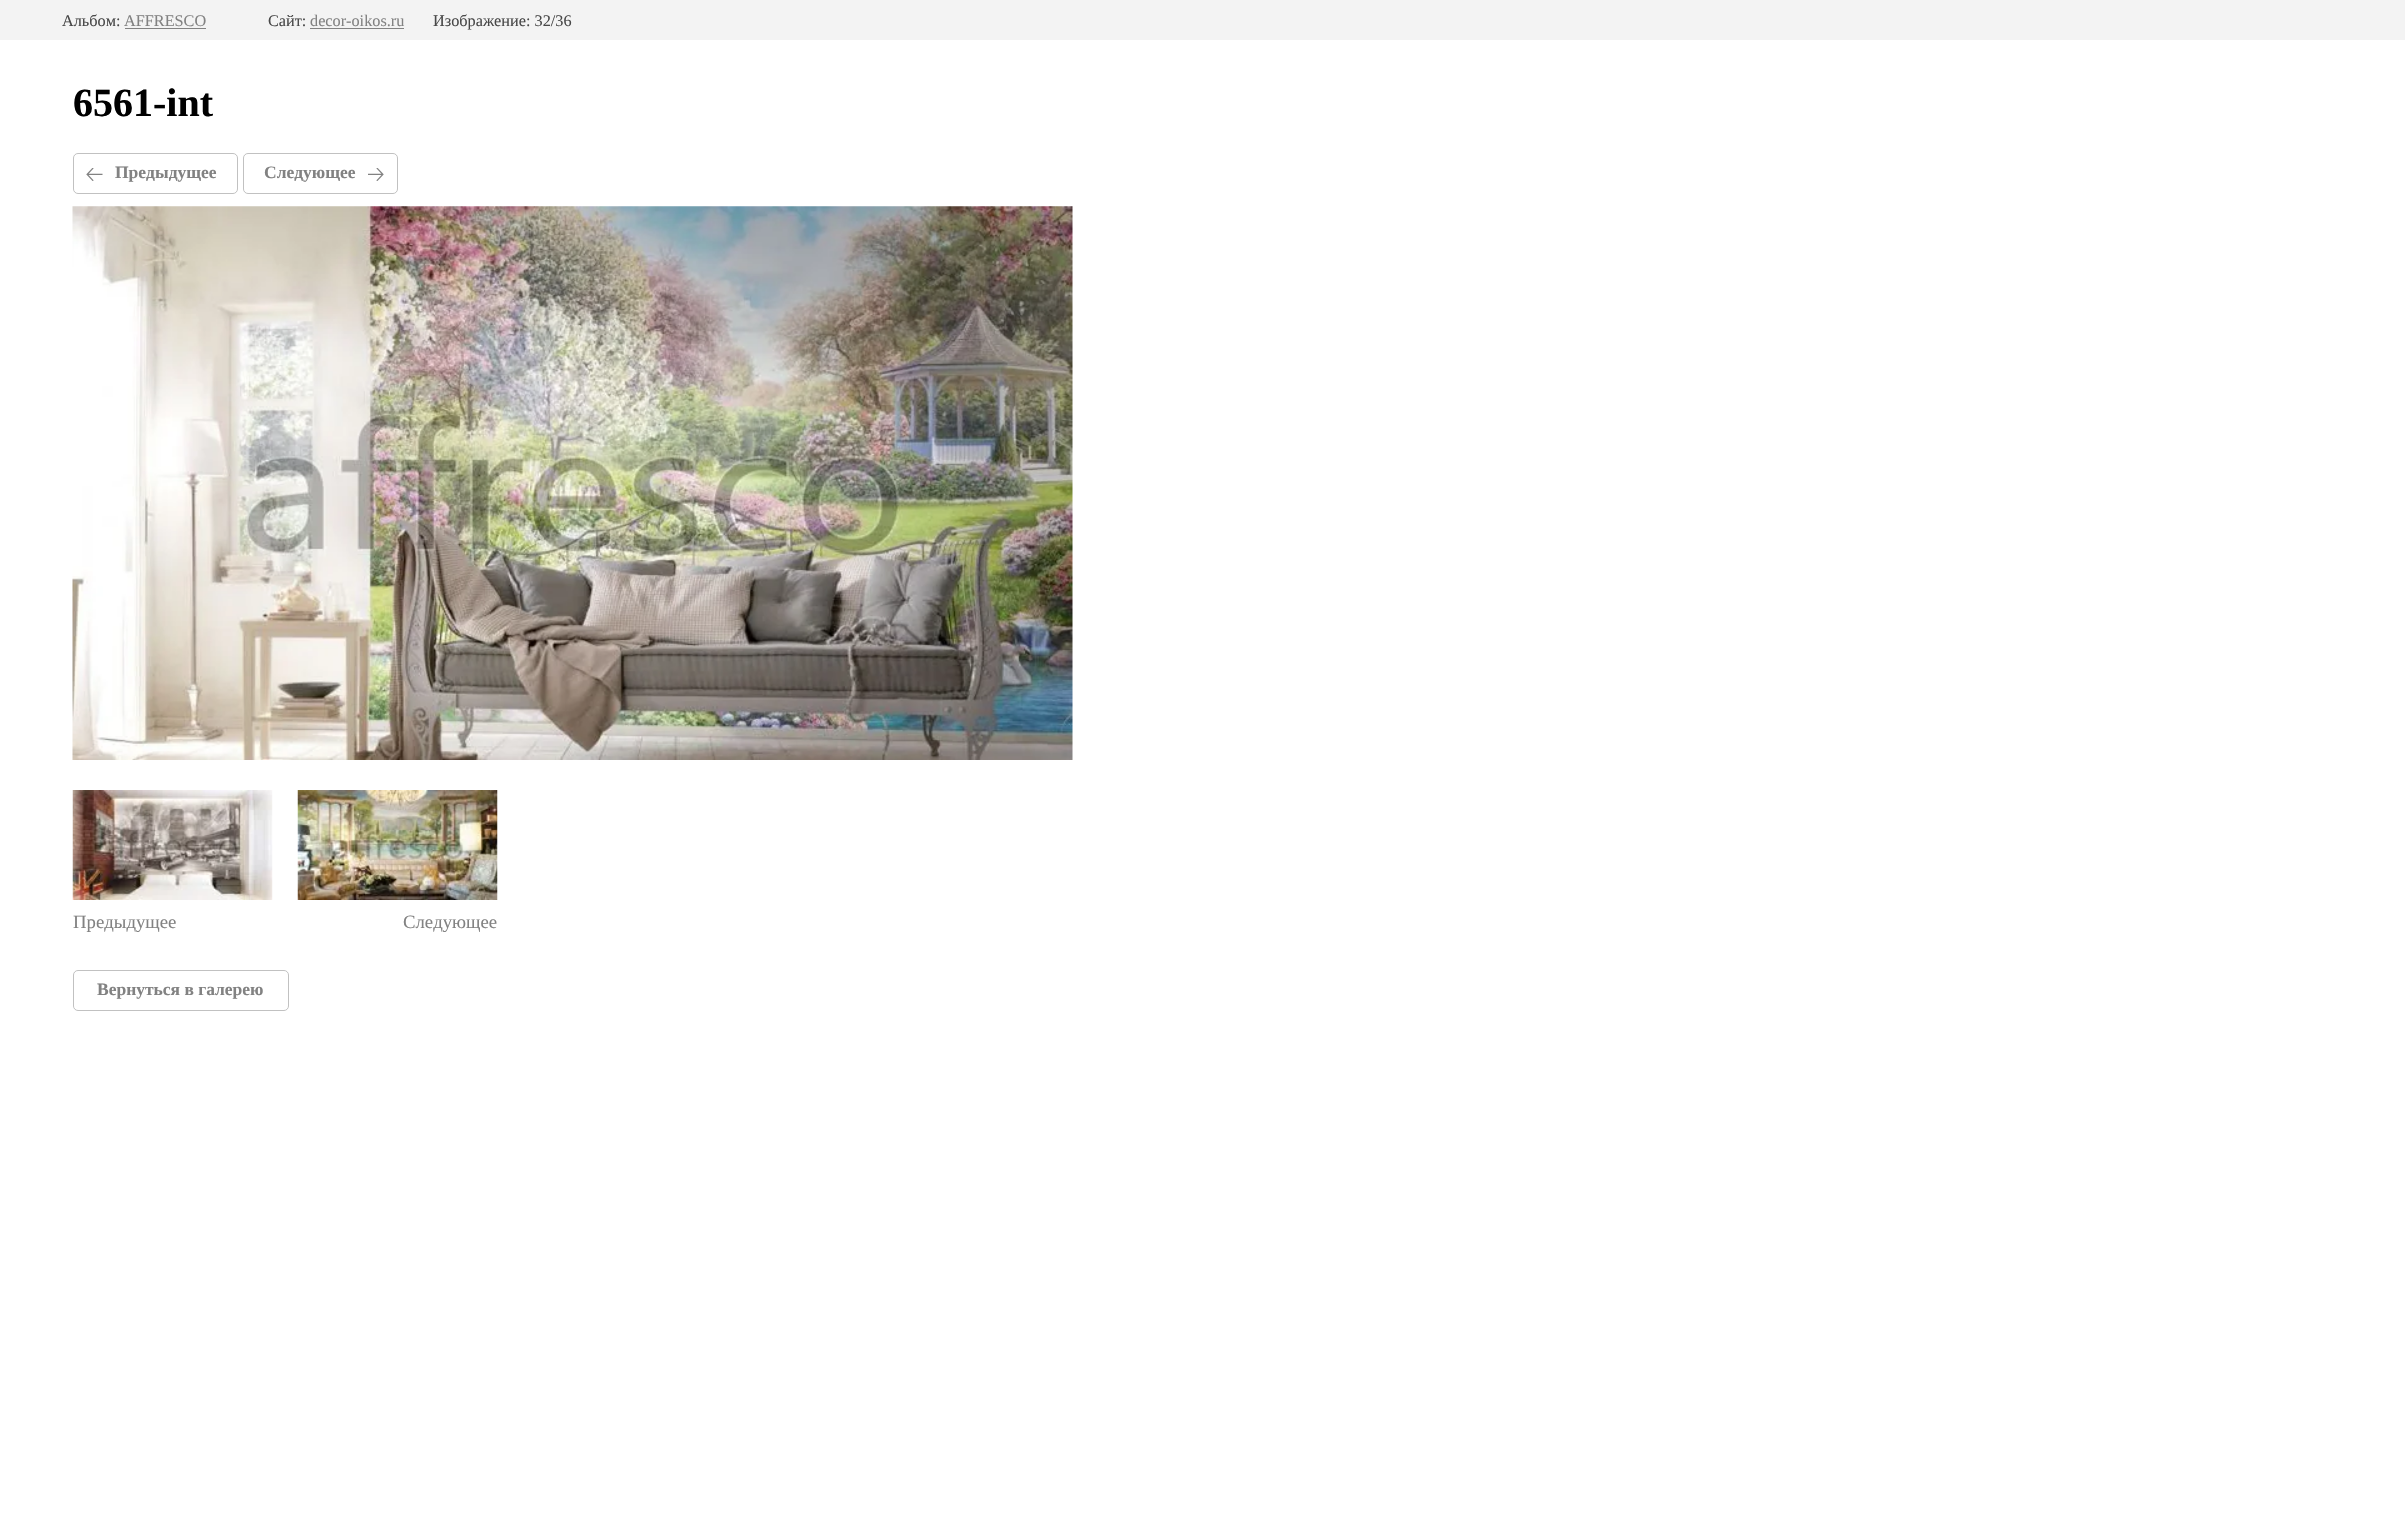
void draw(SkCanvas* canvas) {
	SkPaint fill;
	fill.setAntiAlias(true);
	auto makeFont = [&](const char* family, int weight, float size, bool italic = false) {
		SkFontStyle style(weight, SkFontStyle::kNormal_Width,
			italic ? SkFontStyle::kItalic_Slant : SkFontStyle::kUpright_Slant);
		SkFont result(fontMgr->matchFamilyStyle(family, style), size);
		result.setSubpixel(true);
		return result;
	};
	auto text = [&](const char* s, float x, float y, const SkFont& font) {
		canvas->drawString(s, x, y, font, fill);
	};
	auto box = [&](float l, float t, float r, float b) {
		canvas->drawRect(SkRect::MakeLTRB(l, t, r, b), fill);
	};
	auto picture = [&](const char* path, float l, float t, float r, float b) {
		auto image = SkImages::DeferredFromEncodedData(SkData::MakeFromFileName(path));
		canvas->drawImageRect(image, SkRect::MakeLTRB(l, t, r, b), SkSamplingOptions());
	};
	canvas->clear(0xFFFFFFFF);
	fill.setColor(0xFFF3F3F3);
	box(0, 0, 2405, 40);
	fill.setColor(0xFF828282);
	box(125, 28, 206, 29);
	box(310, 28, 404, 29);
	fill.setStyle(SkPaint::kStroke_Style);
	fill.setStrokeWidth(1);
	fill.setColor(0xFFC1C1C1);
	canvas->drawRoundRect(SkRect::MakeLTRB(73.5f, 153.5f, 237.5f, 193.5f), 4.5f, 4.5f, fill);
	picture("image0.png", 86, 168, 103, 181);
	canvas->drawRoundRect(SkRect::MakeLTRB(243.5f, 153.5f, 397.5f, 193.5f), 4.5f, 4.5f, fill);
	picture("image1.png", 368, 168, 384, 181);
	picture("image2.png", 72, 206, 1073, 760);
	picture("image3.png", 72, 790, 273, 900);
	picture("image4.png", 297, 790, 498, 900);
	canvas->drawRoundRect(SkRect::MakeLTRB(73.5f, 970.5f, 288.5f, 1010.5f), 4.5f, 4.5f, fill);
	auto font1 = makeFont("Liberation Serif", 400, 16.25f);
	fill.setStyle(SkPaint::kFill_Style);
	fill.setColor(0xFF484848);
	text("Альбом:", 62, 26, font1);
	fill.setColor(0xFF828282);
	text("AFFRESCO", 124, 26, font1);
	fill.setColor(0xFF484848);
	text("Сайт:", 268, 26, font1);
	fill.setColor(0xFF828282);
	text("decor-oikos.ru", 310, 26, font1);
	fill.setColor(0xFF484848);
	text("Изображение: 32/36", 433, 26, font1);
	auto font2 = makeFont("Liberation Serif", 700, 40);
	fill.setColor(0xFF000000);
	text("6561-int", 73, 116, font2);
	auto font3 = makeFont("Liberation Serif", 700, 17.5f);
	fill.setColor(0xFF828282);
	text("Предыдущее", 115, 178, font3);
	text("Следующее", 264, 178, font3);
	auto font4 = makeFont("Liberation Serif", 400, 18.75f);
	text("Предыдущее", 73, 928, font4);
	text("Следующее", 403, 928, font4);
	text("Вернуться в галерею", 97, 995, font3);
}
